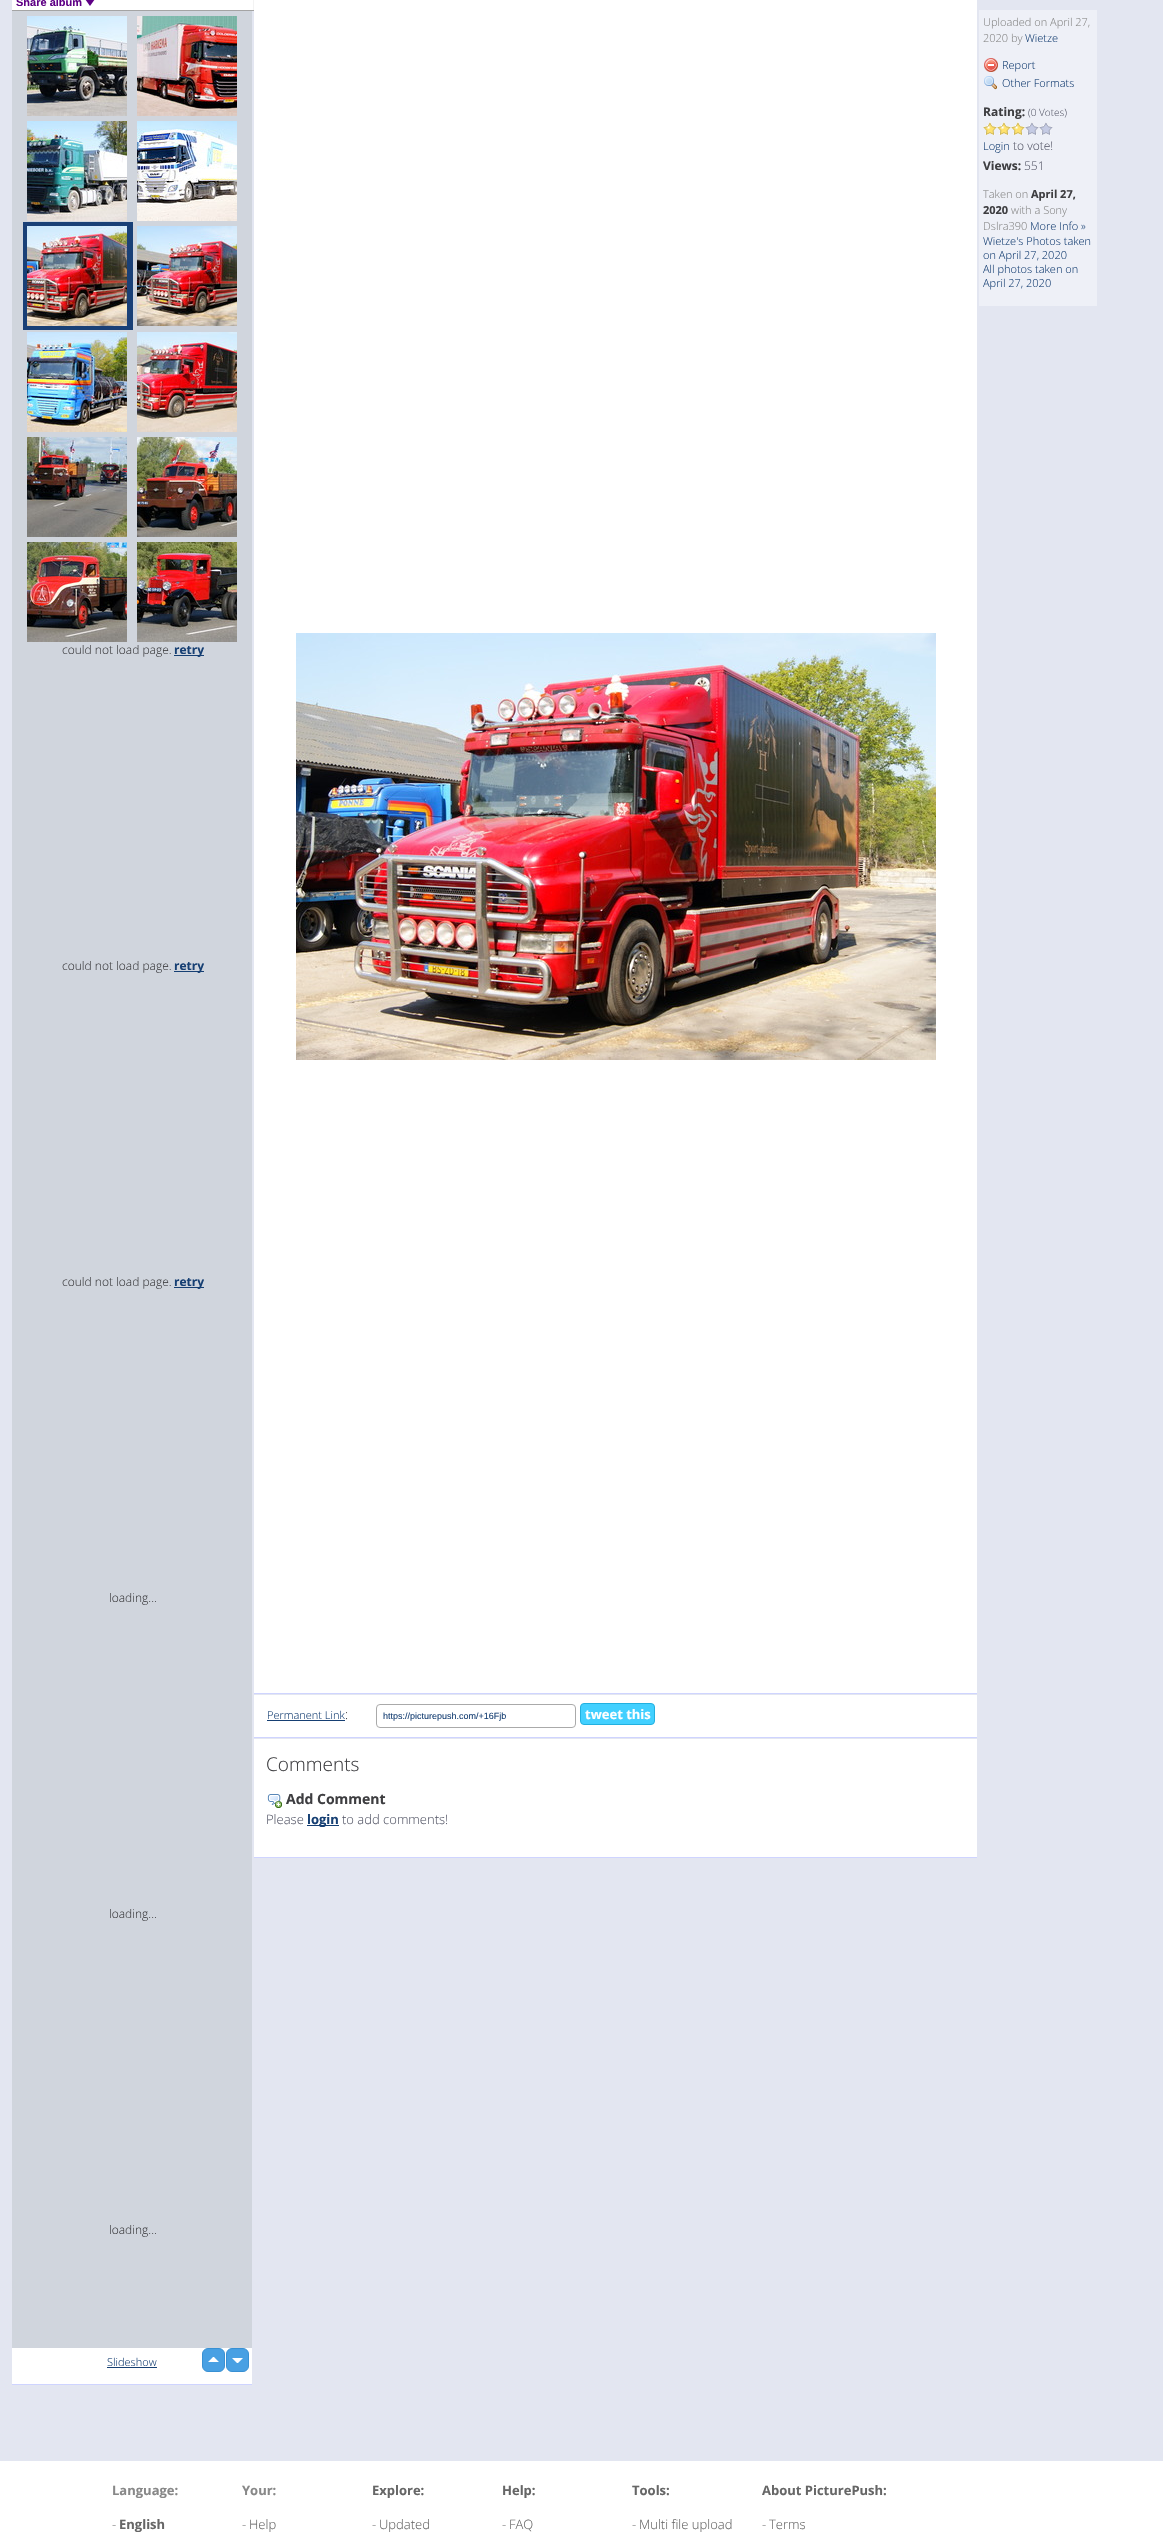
void draw(SkCanvas* canvas) {
	SkPaint fill;
	fill.setAntiAlias(true);
	auto makeFont = [&](const char* family, int weight, float size, bool italic = false) {
		SkFontStyle style(weight, SkFontStyle::kNormal_Width,
			italic ? SkFontStyle::kItalic_Slant : SkFontStyle::kUpright_Slant);
		SkFont result(fontMgr->matchFamilyStyle(family, style), size);
		result.setSubpixel(true);
		return result;
	};
	auto text = [&](const char* s, float x, float y, const SkFont& font) {
		canvas->drawString(s, x, y, font, fill);
	};
	auto box = [&](float l, float t, float r, float b) {
		canvas->drawRect(SkRect::MakeLTRB(l, t, r, b), fill);
	};
	auto picture = [&](const char* path, float l, float t, float r, float b) {
		auto image = SkImages::DeferredFromEncodedData(SkData::MakeFromFileName(path));
		canvas->drawImageRect(image, SkRect::MakeLTRB(l, t, r, b), SkSamplingOptions());
	};
	canvas->clear(0xFFE3E6F1);
	fill.setColor(0xFFFFFFFF);
	box(12, 0, 253, 10);
	fill.setColor(0xFFF3F3F3);
	box(253, 0, 254, 11);
	fill.setColor(0xFFA4A4A4);
	box(12, 10, 254, 11);
	fill.setColor(0xFF5E0085);
	canvas->drawPath(SkPathBuilder().moveTo(85, -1).lineTo(95, -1).lineTo(90, 6).close().detach(), fill);
	fill.setColor(0xFFD0D5DD);
	box(12, 11, 252, 2348);
	fill.setColor(0xFFCFD4FF);
	box(12, 2384, 252, 2385);
	picture("image0.png", 27, 16, 127, 116);
	picture("image1.png", 137, 16, 237, 116);
	picture("image2.png", 27, 121, 127, 221);
	picture("image3.png", 137, 121, 237, 221);
	fill.setColor(0xFF194077);
	box(23, 222, 133, 330);
	picture("image4.png", 27, 226, 127, 326);
	picture("image5.png", 137, 226, 237, 326);
	picture("image6.png", 27, 332, 127, 432);
	picture("image7.png", 137, 332, 237, 432);
	picture("image8.png", 27, 437, 127, 537);
	picture("image9.png", 137, 437, 237, 537);
	picture("image10.png", 27, 542, 127, 642);
	picture("image11.png", 137, 542, 237, 642);
	fill.setColor(0xFF163F73);
	box(174, 655, 204, 656);
	box(174, 971, 204, 972);
	box(174, 1287, 204, 1288);
	fill.setColor(0xFFFFFFFF);
	box(12, 2348, 252, 2384);
	fill.setColor(0xFF48A0E3);
	canvas->drawRoundRect(SkRect::MakeLTRB(202.5f, 2348.5f, 224.5f, 2371.5f), 5.5f, 5.5f, fill);
	fill.setStyle(SkPaint::kStroke_Style);
	fill.setStrokeWidth(1);
	fill.setColor(0xFF3890D3);
	canvas->drawRoundRect(SkRect::MakeLTRB(202.5f, 2348.5f, 224.5f, 2371.5f), 5.5f, 5.5f, fill);
	fill.setStyle(SkPaint::kFill_Style);
	fill.setColor(0xFF48A0E3);
	canvas->drawRoundRect(SkRect::MakeLTRB(226.5f, 2348.5f, 248.5f, 2371.5f), 5.5f, 5.5f, fill);
	fill.setStyle(SkPaint::kStroke_Style);
	fill.setColor(0xFF3890D3);
	canvas->drawRoundRect(SkRect::MakeLTRB(226.5f, 2348.5f, 248.5f, 2371.5f), 5.5f, 5.5f, fill);
	fill.setStyle(SkPaint::kFill_Style);
	fill.setColor(0xFFFFFFFF);
	canvas->drawPath(SkPathBuilder().moveTo(219, 2362).lineTo(208, 2362).lineTo(213, 2357).lineTo(214, 2357).close().moveTo(232, 2358).lineTo(243, 2358).lineTo(238, 2363).lineTo(237, 2363).close().detach(), fill);
	fill.setColor(0xFF163F73);
	box(107, 2367, 157, 2368);
	fill.setColor(0xFFFFFFFF);
	box(254, 0, 977, 1693);
	fill.setColor(0xFFCFD4FF);
	box(254, 1693, 977, 1694);
	fill.setColor(0xFFEEF0F7);
	box(979, 10, 1097, 306);
	picture("image12.png", 984, 58, 998, 72);
	picture("image13.png", 984, 76, 997, 90);
	picture("image14.png", 983, 122, 997, 135);
	picture("image14.png", 997, 122, 1011, 135);
	picture("image14.png", 1011, 122, 1025, 135);
	picture("image15.png", 1025, 122, 1039, 135);
	picture("image15.png", 1039, 122, 1053, 135);
	picture("image16.png", 296, 633, 936, 1060);
	fill.setColor(0xFFFFFFFF);
	box(254, 1695, 977, 1737);
	fill.setColor(0xFFCFD4FF);
	box(254, 1737, 977, 1738);
	fill.setColor(0xFF163F73);
	box(267, 1720, 345, 1721);
	fill.setStyle(SkPaint::kStroke_Style);
	fill.setColor(0xFFAAAAAA);
	canvas->drawRoundRect(SkRect::MakeLTRB(376.5f, 1704.5f, 575.5f, 1727.5f), 3.5f, 3.5f, fill);
	fill.setStyle(SkPaint::kFill_Style);
	fill.setColor(0xFF42D0FF);
	canvas->drawRoundRect(SkRect::MakeLTRB(580.5f, 1703.5f, 654.5f, 1724.5f), 3.5f, 3.5f, fill);
	fill.setStyle(SkPaint::kStroke_Style);
	fill.setColor(0xFF22B0DF);
	canvas->drawRoundRect(SkRect::MakeLTRB(580.5f, 1703.5f, 654.5f, 1724.5f), 3.5f, 3.5f, fill);
	fill.setStyle(SkPaint::kFill_Style);
	fill.setColor(0xFFFFFFFF);
	box(254, 1739, 977, 1857);
	fill.setColor(0xFFCFD4FF);
	box(254, 1857, 977, 1858);
	picture("image17.png", 267, 1794, 282, 1808);
	fill.setColor(0xFF163F73);
	box(307, 1825, 339, 1826);
	fill.setColor(0xFFFFFFFF);
	box(0, 2461, 1163, 2535);
	auto font1 = makeFont("Liberation Sans", 700, 11);
	fill.setColor(0xFF5E0085);
	text("Share album", 16, 6, font1);
	auto font2 = makeFont("Open Sans", 300, 12);
	fill.setColor(0xFF3E3E41);
	text("could not load page.", 62, 654, font2);
	auto font3 = makeFont("Open Sans", 700, 12);
	fill.setColor(0xFF163F73);
	text("retry", 174, 654, font3);
	fill.setColor(0xFF3E3E41);
	text("could not load page.", 62, 970, font2);
	fill.setColor(0xFF163F73);
	text("retry", 174, 970, font3);
	fill.setColor(0xFF3E3E41);
	text("could not load page.", 62, 1286, font2);
	fill.setColor(0xFF163F73);
	text("retry", 174, 1286, font3);
	fill.setColor(0xFF3E3E41);
	text("loading...", 109, 1602, font2);
	text("loading...", 109, 1918, font2);
	text("loading...", 109, 2234, font2);
	auto font4 = makeFont("Open Sans", 300, 11);
	fill.setColor(0xFF163F73);
	text("Slideshow", 107, 2366, font4);
	fill.setColor(0xFF888888);
	text("Uploaded on April 27,", 983, 26, font4);
	text("2020 by", 983, 42, font4);
	fill.setColor(0xFF163F73);
	text("Wietze", 1025, 42, font4);
	text("Report", 1002, 69, font4);
	text("Other Formats", 1002, 87, font4);
	fill.setColor(0xFF3E3E41);
	text("Rating:", 983, 116, font3);
	auto font5 = makeFont("Open Sans", 300, 10);
	fill.setColor(0xFF5A5C6C);
	text("(0 Votes)", 1028, 116, font5);
	fill.setColor(0xFF163F73);
	text("Login", 983, 150, font4);
	fill.setColor(0xFF5A5C6C);
	text("to vote!", 1013, 150, font2);
	fill.setColor(0xFF3E3E41);
	text("Views:", 983, 170, font3);
	fill.setColor(0xFF5A5C6C);
	text("551", 1024, 170, font2);
	fill.setColor(0xFF888888);
	text("Taken on", 983, 198, font4);
	auto font6 = makeFont("Open Sans", 700, 11);
	fill.setColor(0xFF3E3E41);
	text("April 27,", 1031, 198, font6);
	text("2020", 983, 214, font6);
	fill.setColor(0xFF888888);
	text("with a Sony", 1011, 214, font4);
	text("Dslra390", 983, 230, font4);
	fill.setColor(0xFF163F73);
	text("More Info »", 1030, 230, font4);
	text("Wietze's Photos taken", 983, 245, font4);
	text("on April 27, 2020", 983, 259, font4);
	text("All photos taken on", 983, 273, font4);
	text("April 27, 2020", 983, 287, font4);
	text("Permanent Link", 267, 1719, font4);
	auto font7 = makeFont("Open Sans", 300, 13);
	fill.setColor(0xFF3E3E41);
	text(":", 345, 1719, font7);
	auto font8 = makeFont("Liberation Sans", 400, 9);
	fill.setColor(0xFF163F73);
	text("https://picturepush.com/+16Fjb", 383, 1719, font8);
	auto font9 = makeFont("Open Sans", 700, 13);
	fill.setColor(0xFFFFFFFF);
	text("tweet this", 585, 1719, font9);
	auto font10 = makeFont("Open Sans", 300, 19);
	fill.setColor(0xFF3E3E41);
	text("Comments", 266, 1771, font10);
	auto font11 = makeFont("Open Sans", 700, 14);
	text("Add Comment", 286, 1804, font11);
	fill.setColor(0xFF5A5C6C);
	text("Please", 266, 1824, font7);
	fill.setColor(0xFF163F73);
	text("login", 307, 1824, font9);
	fill.setColor(0xFF5A5C6C);
	text("to add comments!", 342, 1824, font7);
	fill.setColor(0xFF888888);
	text("Language:", 112, 2495, font9);
	text("-", 112, 2529, font7);
	fill.setColor(0xFF666666);
	text("English", 119, 2529, font9);
	fill.setColor(0xFF888888);
	text("Your:", 242, 2495, font9);
	text("-", 242, 2529, font7);
	fill.setColor(0xFF666666);
	text("Help", 249, 2529, font7);
	text("Explore:", 372, 2495, font9);
	fill.setColor(0xFF888888);
	text("-", 372, 2529, font7);
	fill.setColor(0xFF666666);
	text("Updated", 379, 2529, font7);
	text("Help:", 502, 2495, font9);
	fill.setColor(0xFF888888);
	text("-", 502, 2529, font7);
	fill.setColor(0xFF666666);
	text("FAQ", 509, 2529, font7);
	text("Tools:", 632, 2495, font9);
	fill.setColor(0xFF888888);
	text("-", 632, 2529, font7);
	fill.setColor(0xFF666666);
	text("Multi file upload", 639, 2529, font7);
	text("About PicturePush:", 762, 2495, font9);
	fill.setColor(0xFF888888);
	text("-", 762, 2529, font7);
	fill.setColor(0xFF666666);
	text("Terms", 769, 2529, font7);
}
